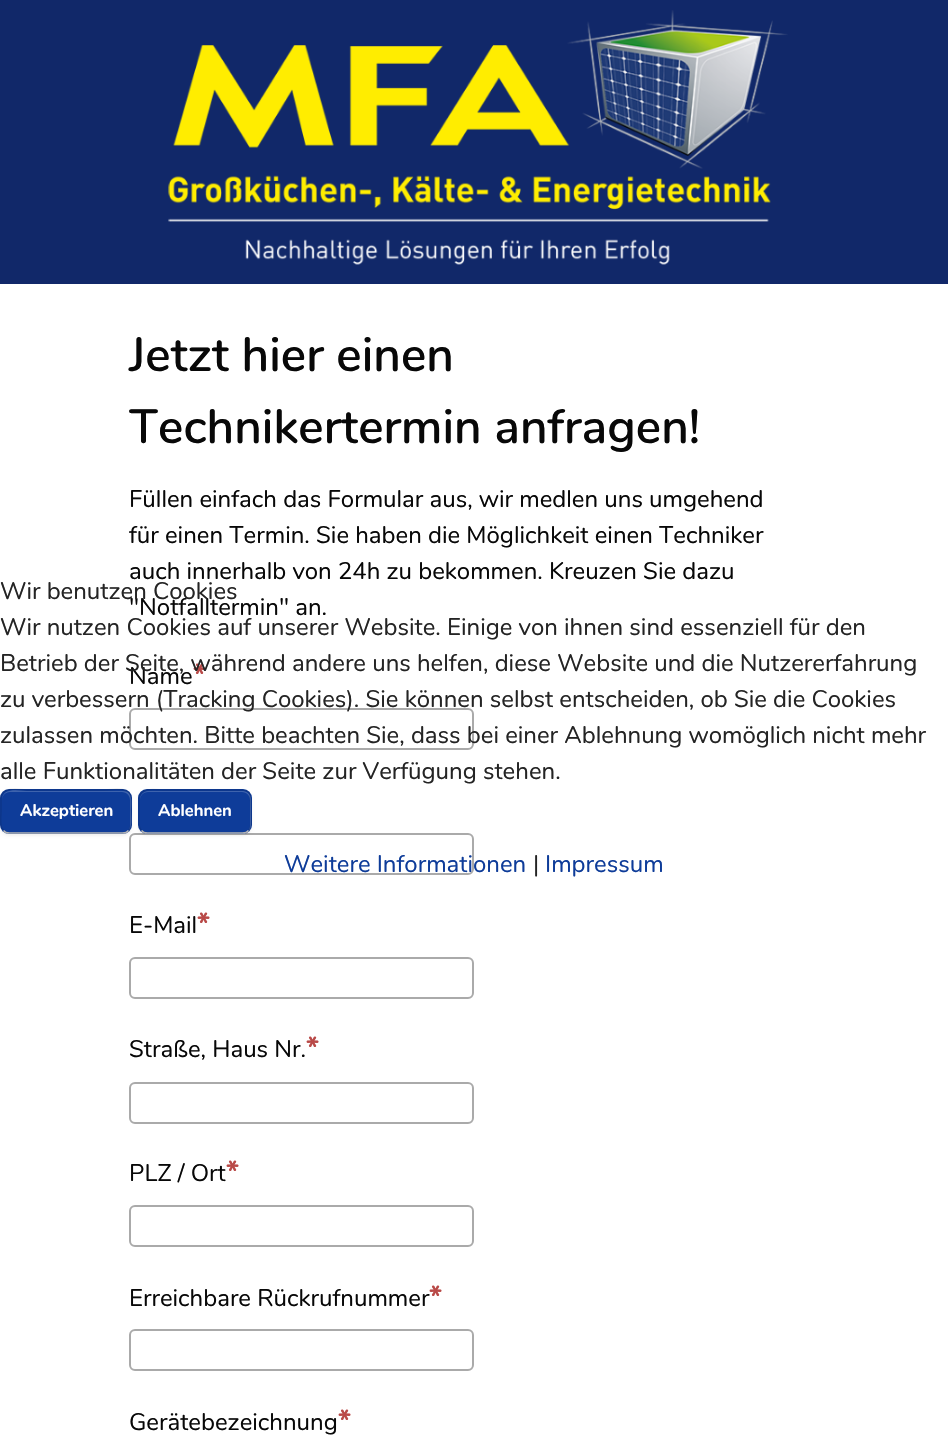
void draw(SkCanvas* canvas) {
	SkPaint fill;
	fill.setAntiAlias(true);
	auto makeFont = [&](const char* family, int weight, float size, bool italic = false) {
		SkFontStyle style(weight, SkFontStyle::kNormal_Width,
			italic ? SkFontStyle::kItalic_Slant : SkFontStyle::kUpright_Slant);
		SkFont result(fontMgr->matchFamilyStyle(family, style), size);
		result.setSubpixel(true);
		return result;
	};
	auto text = [&](const char* s, float x, float y, const SkFont& font) {
		canvas->drawString(s, x, y, font, fill);
	};
	auto box = [&](float l, float t, float r, float b) {
		canvas->drawRect(SkRect::MakeLTRB(l, t, r, b), fill);
	};
	auto roundBox = [&](float l, float t, float r, float b, float radius) {
		canvas->drawRoundRect(SkRect::MakeLTRB(l, t, r, b), radius, radius, fill);
	};
	auto picture = [&](const char* path, float l, float t, float r, float b) {
		auto image = SkImages::DeferredFromEncodedData(SkData::MakeFromFileName(path));
		canvas->drawImageRect(image, SkRect::MakeLTRB(l, t, r, b), SkSamplingOptions());
	};
	canvas->clear(0xFF112869);
	picture("image0.png", 168, 10, 788, 265);
	fill.setColor(0xFFFFFFFF);
	box(0, 284, 948, 1454);
	fill.setStyle(SkPaint::kStroke_Style);
	fill.setStrokeWidth(2);
	fill.setColor(0xFFAAAAAA);
	canvas->drawRoundRect(SkRect::MakeLTRB(130, 709, 473, 749), 5, 5, fill);
	canvas->drawRoundRect(SkRect::MakeLTRB(130, 834, 473, 874), 5, 5, fill);
	canvas->drawRoundRect(SkRect::MakeLTRB(130, 958, 473, 998), 5, 5, fill);
	canvas->drawRoundRect(SkRect::MakeLTRB(130, 1083, 473, 1123), 5, 5, fill);
	canvas->drawRoundRect(SkRect::MakeLTRB(130, 1206, 473, 1246), 5, 5, fill);
	canvas->drawRoundRect(SkRect::MakeLTRB(130, 1330, 473, 1370), 5, 5, fill);
	fill.setStyle(SkPaint::kFill_Style);
	fill.setColor(0x0D000000);
	fill.setMaskFilter(SkMaskFilter::MakeBlur(kNormal_SkBlurStyle, 1.5f));
	canvas->drawRoundRect(SkRect::MakeLTRB(0, 791, 132, 836), 9, 9, fill);
	fill.setMaskFilter(nullptr);
	fill.setColor(0xFF0E3C99);
	roundBox(0, 789, 132, 834, 9);
	fill.setColor(0xFF3E63AD);
	canvas->drawPath(SkPathBuilder().moveTo(10, 792).lineTo(122, 792).cubicTo(127, 792, 130, 796, 130, 800).lineTo(130, 826).cubicTo(130, 828, 129, 830, 128, 831).cubicTo(133, 827, 131, 817, 131, 812).cubicTo(131, 805, 134, 791, 123, 791).lineTo(29, 791).cubicTo(21, 791, 2, 786, 2, 800).cubicTo(2, 796, 5, 792, 10, 792).close().detach(), fill);
	fill.setStyle(SkPaint::kStroke_Style);
	fill.setStrokeWidth(1.5f);
	fill.setColor(0xFFB3B3B3);
	canvas->drawPath(SkPathBuilder().moveTo(128.5f, 830.5f).cubicTo(127, 832.5f, 124.5f, 833, 122.5f, 833).lineTo(9.5f, 833).cubicTo(7.5f, 833, 5, 832.5f, 3.5f, 830.5f).detach(), fill);
	fill.setColor(0x1A000000);
	canvas->drawPath(SkPathBuilder().moveTo(3.5f, 830.5f).cubicTo(-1, 826.5f, 1, 817, 1, 811.5f).lineTo(1, 797).cubicTo(3, 785.5f, 22.5f, 790, 28.5f, 790).lineTo(103.5f, 790).cubicTo(109.5f, 790, 129, 785.5f, 131, 797).lineTo(131, 820).cubicTo(131, 824, 131.5f, 827.5f, 128.5f, 830.5f).detach(), fill);
	fill.setStyle(SkPaint::kFill_Style);
	fill.setColor(0x0D000000);
	fill.setMaskFilter(SkMaskFilter::MakeBlur(kNormal_SkBlurStyle, 1.5f));
	canvas->drawRoundRect(SkRect::MakeLTRB(138, 791, 252, 836), 9, 9, fill);
	fill.setMaskFilter(nullptr);
	fill.setColor(0xFF0E3C99);
	roundBox(138, 789, 252, 834, 9);
	fill.setColor(0xFF3E63AD);
	canvas->drawPath(SkPathBuilder().moveTo(148, 792).lineTo(242, 792).cubicTo(247, 792, 250, 796, 250, 800).lineTo(250, 826).cubicTo(250, 828, 249, 830, 248, 831).cubicTo(250, 830, 251, 827, 251, 825).lineTo(251, 799).cubicTo(251, 795, 247, 791, 243, 791).lineTo(148, 791).cubicTo(144, 791, 140, 795, 140, 799).lineTo(140, 800).cubicTo(140, 796, 143, 792, 148, 792).close().detach(), fill);
	fill.setStyle(SkPaint::kStroke_Style);
	fill.setColor(0xFFB3B3B3);
	canvas->drawPath(SkPathBuilder().moveTo(248.5f, 830.5f).cubicTo(247, 832.5f, 244.5f, 833, 242.5f, 833).lineTo(147.5f, 833).cubicTo(145.5f, 833, 143, 832.5f, 141.5f, 830.5f).detach(), fill);
	fill.setColor(0x1A000000);
	canvas->drawPath(SkPathBuilder().moveTo(141.5f, 830.5f).cubicTo(138.5f, 827.5f, 139, 824, 139, 820).lineTo(139, 797).cubicTo(141, 786.5f, 157, 790, 163.5f, 790).lineTo(226.5f, 790).cubicTo(251.5f, 790, 251, 787.5f, 251, 811.5f).cubicTo(251, 817, 253, 826.5f, 248.5f, 830.5f).detach(), fill);
	auto font1 = makeFont("Nunito", 600, 48);
	fill.setStyle(SkPaint::kFill_Style);
	fill.setColor(0xFF080808);
	text("Jetzt hier einen", 129, 371, font1);
	text("Technikertermin anfragen!", 129, 443, font1);
	auto font2 = makeFont("Nunito", 400, 24);
	text("Füllen einfach das Formular aus, wir medlen uns umgehend", 129, 507, font2);
	text("für einen Termin. Sie haben die Möglichkeit einen Techniker", 129, 543, font2);
	text("auch innerhalb von 24h zu bekommen. Kreuzen Sie dazu", 129, 579, font2);
	text("\"Notfalltermin\" an.", 129, 615, font2);
	text("Name", 129, 684, font2);
	auto font3 = makeFont("Nunito", 700, 29);
	fill.setColor(0xFFB94A48);
	text("*", 193, 684, font3);
	fill.setColor(0xFF080808);
	text("E-Mail", 129, 933, font2);
	fill.setColor(0xFFB94A48);
	text("*", 197, 933, font3);
	fill.setColor(0xFF080808);
	text("Straße, Haus Nr.", 129, 1057, font2);
	fill.setColor(0xFFB94A48);
	text("*", 306, 1057, font3);
	fill.setColor(0xFF080808);
	text("PLZ / Ort", 129, 1181, font2);
	fill.setColor(0xFFB94A48);
	text("*", 226, 1181, font3);
	fill.setColor(0xFF080808);
	text("Erreichbare Rückrufnummer", 129, 1306, font2);
	fill.setColor(0xFFB94A48);
	text("*", 429, 1306, font3);
	fill.setColor(0xFF080808);
	text("Gerätebezeichnung", 129, 1430, font2);
	fill.setColor(0xFFB94A48);
	text("*", 338, 1430, font3);
	fill.setColor(0xFF242424);
	text("Wir benutzen Cookies", 0, 599, font2);
	text("Wir nutzen Cookies auf unserer Website. Einige von ihnen sind essenziell für den", 0, 635, font2);
	text("Betrieb der Seite, während andere uns helfen, diese Website und die Nutzererfahrung", 0, 671, font2);
	text("zu verbessern (Tracking Cookies). Sie können selbst entscheiden, ob Sie die Cookies", 0, 707, font2);
	text("zulassen möchten. Bitte beachten Sie, dass bei einer Ablehnung womöglich nicht mehr", 0, 743, font2);
	text("alle Funktionalitäten der Seite zur Verfügung stehen.", 0, 779, font2);
	auto font4 = makeFont("Nunito", 700, 16.75f);
	fill.setColor(0xFFFFFFFF);
	text("Akzeptieren", 20, 816, font4);
	text("Ablehnen", 158, 816, font4);
	fill.setColor(0xFF0E3C99);
	text("Weitere Informationen", 284, 872, font2);
	fill.setColor(0xFF242424);
	text("|", 533, 872, font2);
	fill.setColor(0xFF0E3C99);
	text("Impressum", 545, 872, font2);
}
